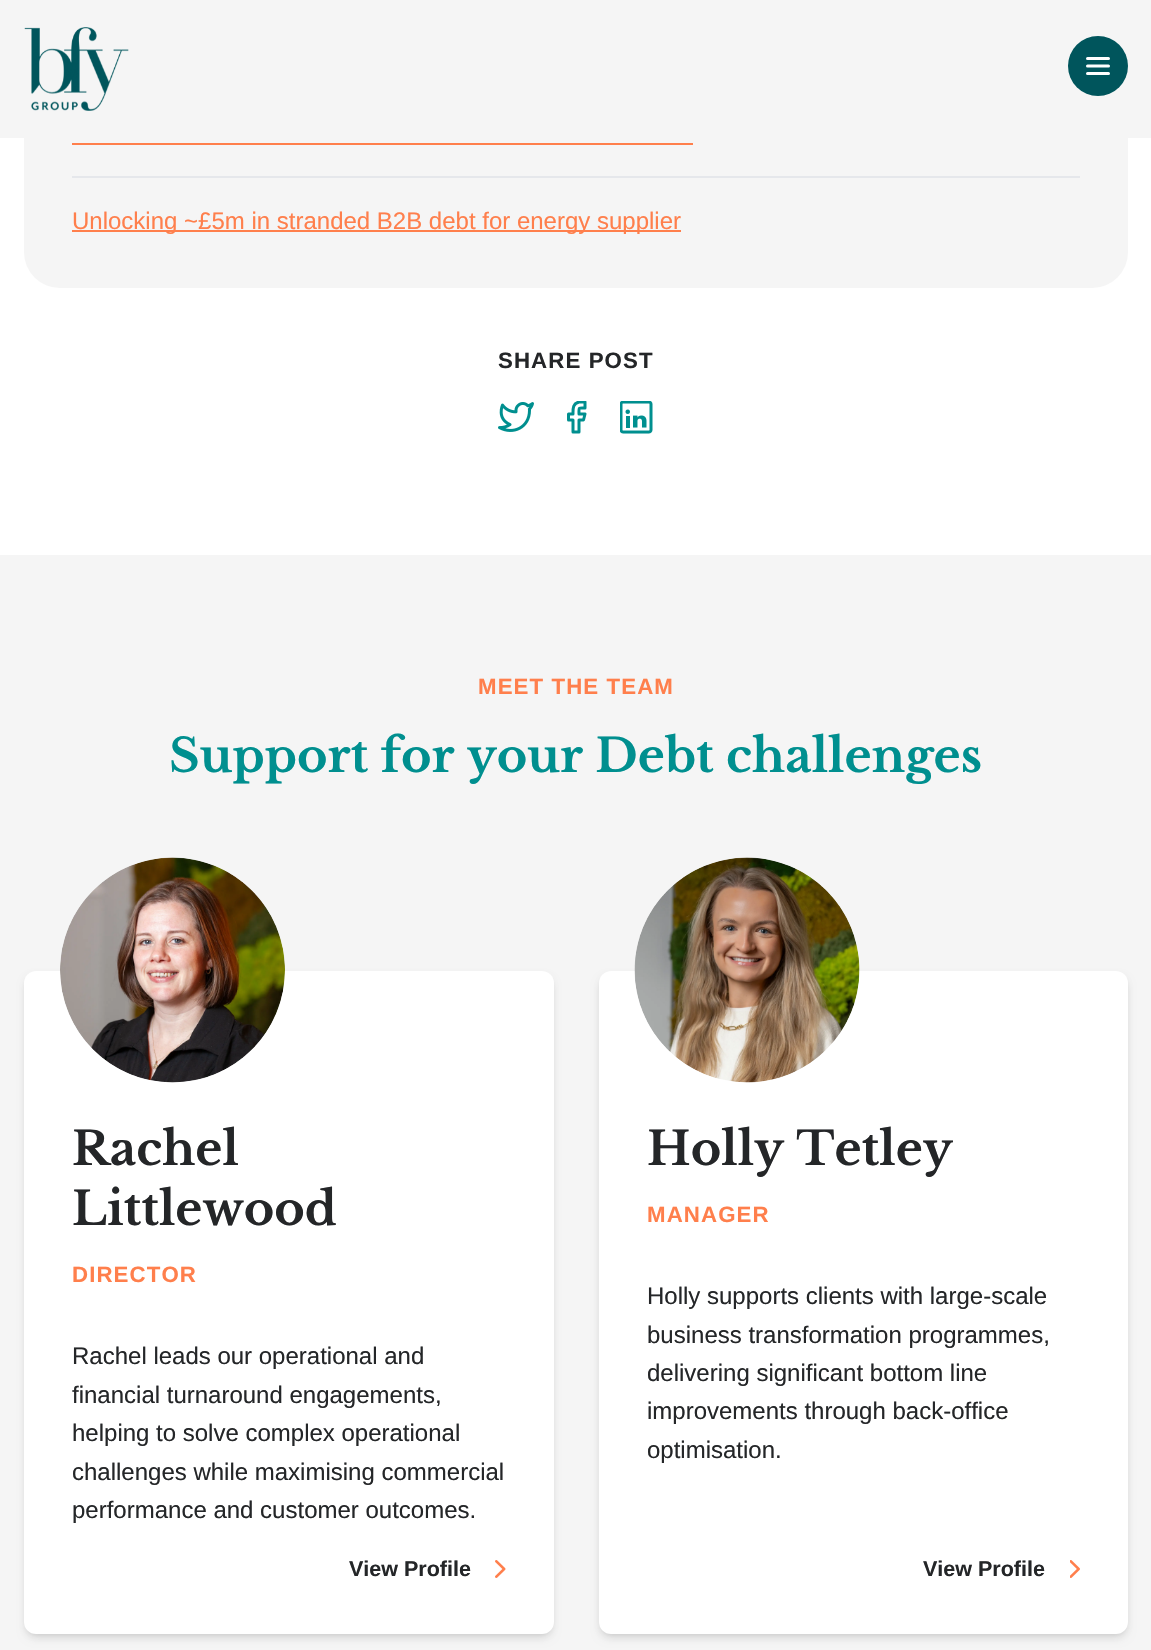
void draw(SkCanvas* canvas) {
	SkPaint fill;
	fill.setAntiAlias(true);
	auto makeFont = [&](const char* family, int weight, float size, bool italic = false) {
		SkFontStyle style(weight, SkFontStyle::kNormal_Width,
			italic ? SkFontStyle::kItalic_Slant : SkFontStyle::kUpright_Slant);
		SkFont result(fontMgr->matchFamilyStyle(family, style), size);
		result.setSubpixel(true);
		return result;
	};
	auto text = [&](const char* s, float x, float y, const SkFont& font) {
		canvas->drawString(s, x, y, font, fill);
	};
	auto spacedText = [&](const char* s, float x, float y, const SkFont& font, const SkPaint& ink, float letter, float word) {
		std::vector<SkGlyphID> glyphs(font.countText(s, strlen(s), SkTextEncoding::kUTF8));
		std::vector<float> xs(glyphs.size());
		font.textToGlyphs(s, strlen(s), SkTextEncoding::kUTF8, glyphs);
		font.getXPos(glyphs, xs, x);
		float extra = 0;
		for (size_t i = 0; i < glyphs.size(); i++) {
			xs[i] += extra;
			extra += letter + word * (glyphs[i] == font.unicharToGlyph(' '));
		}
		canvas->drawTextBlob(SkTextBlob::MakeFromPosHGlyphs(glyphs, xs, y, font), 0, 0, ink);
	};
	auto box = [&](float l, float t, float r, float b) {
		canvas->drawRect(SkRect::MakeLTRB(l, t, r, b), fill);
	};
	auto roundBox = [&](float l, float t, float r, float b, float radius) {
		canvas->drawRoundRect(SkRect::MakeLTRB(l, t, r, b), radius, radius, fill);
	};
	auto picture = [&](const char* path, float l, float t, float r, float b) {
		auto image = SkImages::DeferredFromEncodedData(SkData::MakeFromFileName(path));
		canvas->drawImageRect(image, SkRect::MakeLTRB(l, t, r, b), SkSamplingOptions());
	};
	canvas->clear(0xFFFFFFFF);
	fill.setColor(0xFFF5F5F5);
	roundBox(24, -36, 1128, 288, 36);
	box(0, 0, 1151, 138);
	picture("image0.png", 24, 27, 129, 111);
	fill.setColor(0xFF00555C);
	canvas->drawCircle(1098, 66, 30, fill);
	fill.setStyle(SkPaint::kStroke_Style);
	fill.setStrokeWidth(3);
	fill.setStrokeCap(SkPaint::kRound_Cap);
	fill.setStrokeJoin(SkPaint::kRound_Join);
	fill.setColor(0xFFFFFFFF);
	canvas->drawPath(SkPathBuilder().moveTo(1087.5f, 58.5f).lineTo(1108.5f, 58.5f).moveTo(1087.5f, 66).lineTo(1108.5f, 66).moveTo(1087.5f, 73.5f).lineTo(1108.5f, 73.5f).detach(), fill);
	fill.setStyle(SkPaint::kFill_Style);
	fill.setColor(0xFFFF7F4C);
	box(72, 143, 693, 145);
	fill.setColor(0xFFE5E7EB);
	box(72, 176, 1080, 178);
	fill.setColor(0xFFFF7F4C);
	box(72, 230, 681, 232);
	picture("image1.png", 498, 402, 534, 432);
	canvas->save();
	canvas->clipRect(SkRect::MakeLTRB(567, 401, 587, 434));
	fill.setStyle(SkPaint::kStroke_Style);
	fill.setColor(0xFF008F8F);
	canvas->drawPath(SkPathBuilder().moveTo(585, 402).lineTo(579, 402).cubicTo(572.5f, 403.5f, 573, 409, 573, 414).lineTo(568.5f, 414).lineTo(568.5f, 420).lineTo(573, 420).lineTo(573, 432).lineTo(579, 432).lineTo(579, 420).lineTo(583.5f, 420).lineTo(585, 414).lineTo(579, 414).cubicTo(579, 407, 578, 408, 585, 408).close().detach(), fill);
	canvas->restore();
	picture("image2.png", 620, 401, 653, 434);
	fill.setStyle(SkPaint::kFill_Style);
	fill.setColor(0xFFF5F5F5);
	box(0, 555, 1151, 1650);
	fill.setColor(0x1A000000);
	fill.setMaskFilter(SkMaskFilter::MakeBlur(kNormal_SkBlurStyle, 3));
	canvas->drawRoundRect(SkRect::MakeLTRB(27, 977, 551, 1634), 9, 9, fill);
	fill.setMaskFilter(nullptr);
	fill.setMaskFilter(SkMaskFilter::MakeBlur(kNormal_SkBlurStyle, 4.5f));
	canvas->drawRoundRect(SkRect::MakeLTRB(26, 978, 552, 1638), 11, 11, fill);
	fill.setMaskFilter(nullptr);
	fill.setColor(0xFFFFFFFF);
	roundBox(24, 971, 554, 1634, 12);
	picture("image3.png", 60, 857, 285, 1083);
	picture("image4.png", 495, 1560, 506, 1578);
	fill.setColor(0x1A000000);
	fill.setMaskFilter(SkMaskFilter::MakeBlur(kNormal_SkBlurStyle, 3));
	canvas->drawRoundRect(SkRect::MakeLTRB(602, 977, 1125, 1634), 9, 9, fill);
	fill.setMaskFilter(nullptr);
	fill.setMaskFilter(SkMaskFilter::MakeBlur(kNormal_SkBlurStyle, 4.5f));
	canvas->drawRoundRect(SkRect::MakeLTRB(600, 978, 1127, 1638), 11, 11, fill);
	fill.setMaskFilter(nullptr);
	fill.setColor(0xFFFFFFFF);
	roundBox(599, 971, 1128, 1634, 12);
	picture("image5.png", 634, 857, 860, 1083);
	picture("image6.png", 1070, 1560, 1080, 1578);
	auto font1 = makeFont("Liberation Sans", 400, 24);
	fill.setColor(0xFFFF7F4C);
	text("Unlocking ~£5m in stranded B2B debt for energy supplier", 72, 229, font1);
	auto font2 = makeFont("Liberation Sans", 700, 22.25f);
	fill.setColor(0xFF242628);
	spacedText("SHARE POST", 498, 368, font2, fill, 1.1f, 0);
	fill.setColor(0xFFFF7F4C);
	spacedText("MEET THE TEAM", 478, 694, font2, fill, 1.1f, 0);
	auto font3 = makeFont("Libre Baskerville", 700, 46.25f);
	fill.setColor(0xFF008F8F);
	text("Support for your Debt challenges", 169, 772, font3);
	fill.setColor(0xFF242628);
	text("Rachel", 72, 1165, font3);
	text("Littlewood", 72, 1225, font3);
	fill.setColor(0xFFFF7F4C);
	spacedText("DIRECTOR", 72, 1282, font2, fill, 1.1f, 0);
	fill.setColor(0xFF242628);
	text("Rachel leads our operational and", 72, 1364, font1);
	text("financial turnaround engagements,", 72, 1403, font1);
	text("helping to solve complex operational", 72, 1441, font1);
	text("challenges while maximising commercial", 72, 1480, font1);
	text("performance and customer outcomes.", 72, 1518, font1);
	auto font4 = makeFont("Liberation Sans", 700, 21.5f);
	text("View Profile", 349, 1576, font4);
	text("Holly Tetley", 647, 1165, font3);
	fill.setColor(0xFFFF7F4C);
	spacedText("MANAGER", 647, 1222, font2, fill, 1.1f, 0);
	fill.setColor(0xFF242628);
	text("Holly supports clients with large-scale", 647, 1304, font1);
	text("business transformation programmes,", 647, 1343, font1);
	text("delivering significant bottom line", 647, 1381, font1);
	text("improvements through back-office", 647, 1419, font1);
	text("optimisation.", 647, 1458, font1);
	text("View Profile", 923, 1576, font4);
}
